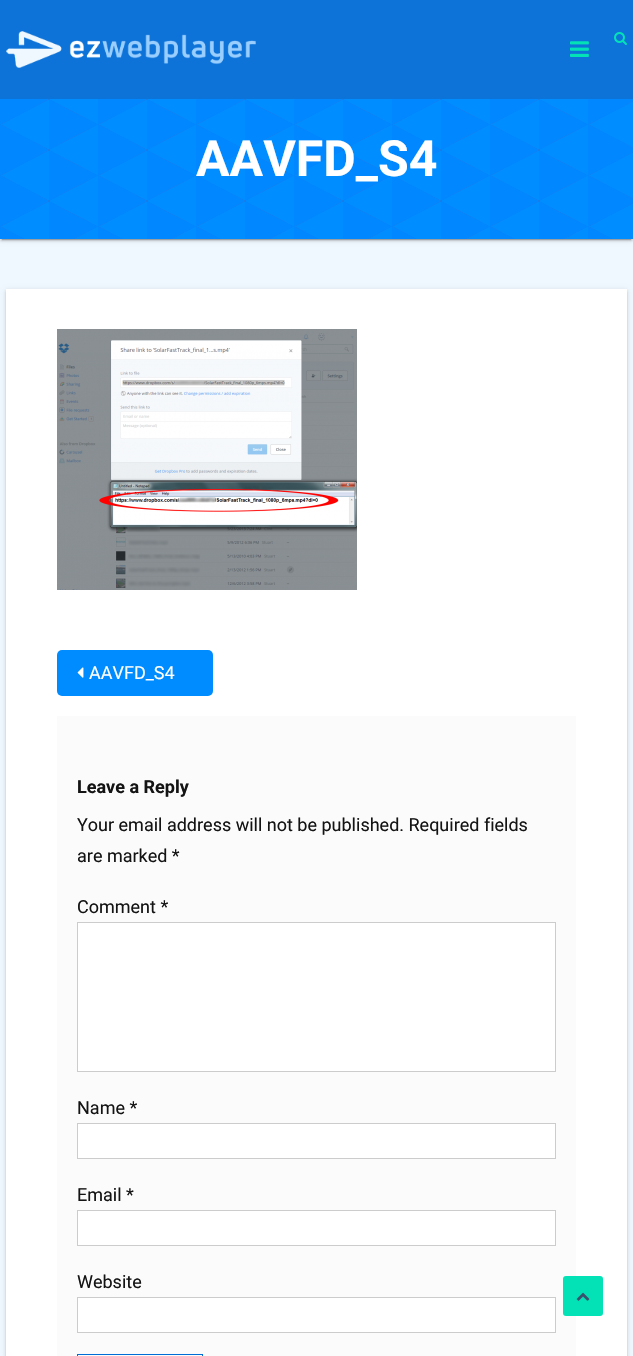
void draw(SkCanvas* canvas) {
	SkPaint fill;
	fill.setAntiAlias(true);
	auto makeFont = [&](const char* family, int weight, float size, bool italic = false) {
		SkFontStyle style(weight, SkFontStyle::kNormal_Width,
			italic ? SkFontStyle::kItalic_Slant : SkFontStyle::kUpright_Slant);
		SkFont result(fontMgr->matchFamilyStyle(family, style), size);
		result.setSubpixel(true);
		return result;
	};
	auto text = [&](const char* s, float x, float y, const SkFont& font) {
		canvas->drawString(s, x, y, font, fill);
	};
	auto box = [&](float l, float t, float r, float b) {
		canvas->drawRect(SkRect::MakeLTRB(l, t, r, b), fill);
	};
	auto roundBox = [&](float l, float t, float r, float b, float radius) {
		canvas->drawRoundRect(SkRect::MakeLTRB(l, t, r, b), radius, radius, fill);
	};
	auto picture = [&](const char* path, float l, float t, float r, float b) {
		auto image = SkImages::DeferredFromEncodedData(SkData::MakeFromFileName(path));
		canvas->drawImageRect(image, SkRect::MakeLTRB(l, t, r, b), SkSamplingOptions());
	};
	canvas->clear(0xFFF0F8FF);
	fill.setColor(0x1F000000);
	fill.setMaskFilter(SkMaskFilter::MakeBlur(kNormal_SkBlurStyle, 2.5f));
	canvas->drawRect(SkRect::MakeLTRB(0, 100, 633, 240), fill);
	fill.setMaskFilter(nullptr);
	fill.setColor(0x24000000);
	fill.setMaskFilter(SkMaskFilter::MakeBlur(kNormal_SkBlurStyle, 1));
	canvas->drawRect(SkRect::MakeLTRB(0, 101, 633, 241), fill);
	fill.setMaskFilter(nullptr);
	fill.setColor(0xF2006CD6);
	box(0, 0, 633, 99);
	picture("image0.png", 6, 31, 256, 68);
	picture("image1.png", 614, 32, 627, 45);
	picture("image2.png", 570, 41, 589, 57);
	fill.setColor(0x33000000);
	fill.setMaskFilter(SkMaskFilter::MakeBlur(kNormal_SkBlurStyle, 0.5f));
	canvas->drawRect(SkRect::MakeLTRB(2, 104, 631, 240), fill);
	fill.setMaskFilter(nullptr);
	picture("image3.png", 0, 99, 633, 239);
	fill.setColor(0x1F000000);
	fill.setMaskFilter(SkMaskFilter::MakeBlur(kNormal_SkBlurStyle, 2.5f));
	canvas->drawRect(SkRect::MakeLTRB(6, 290, 627, 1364), fill);
	fill.setMaskFilter(nullptr);
	fill.setColor(0x24000000);
	fill.setMaskFilter(SkMaskFilter::MakeBlur(kNormal_SkBlurStyle, 1));
	canvas->drawRect(SkRect::MakeLTRB(6, 291, 627, 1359), fill);
	fill.setMaskFilter(nullptr);
	fill.setColor(0xFFFFFFFF);
	box(6, 289, 627, 1356);
	picture("image4.png", 57, 329, 357, 590);
	fill.setColor(0xFF008CFF);
	roundBox(57, 650, 213, 696, 5);
	picture("image5.png", 77, 667, 84, 678);
	fill.setColor(0xFFFBFBFB);
	box(57, 716, 576, 1356);
	fill.setColor(0xFFFFFFFF);
	canvas->drawRect(SkRect::MakeLTRB(77.5f, 922.5f, 555.5f, 1071.5f), fill);
	fill.setStyle(SkPaint::kStroke_Style);
	fill.setStrokeWidth(1);
	fill.setColor(0xFFCCCCCC);
	canvas->drawRect(SkRect::MakeLTRB(77.5f, 922.5f, 555.5f, 1071.5f), fill);
	fill.setStyle(SkPaint::kFill_Style);
	fill.setColor(0xFFFFFFFF);
	canvas->drawRect(SkRect::MakeLTRB(77.5f, 1123.5f, 555.5f, 1158.5f), fill);
	fill.setStyle(SkPaint::kStroke_Style);
	fill.setColor(0xFFCCCCCC);
	canvas->drawRect(SkRect::MakeLTRB(77.5f, 1123.5f, 555.5f, 1158.5f), fill);
	fill.setStyle(SkPaint::kFill_Style);
	fill.setColor(0xFFFFFFFF);
	canvas->drawRect(SkRect::MakeLTRB(77.5f, 1210.5f, 555.5f, 1245.5f), fill);
	fill.setStyle(SkPaint::kStroke_Style);
	fill.setColor(0xFFCCCCCC);
	canvas->drawRect(SkRect::MakeLTRB(77.5f, 1210.5f, 555.5f, 1245.5f), fill);
	fill.setStyle(SkPaint::kFill_Style);
	fill.setColor(0xFFFFFFFF);
	canvas->drawRect(SkRect::MakeLTRB(77.5f, 1297.5f, 555.5f, 1332.5f), fill);
	fill.setStyle(SkPaint::kStroke_Style);
	fill.setColor(0xFFCCCCCC);
	canvas->drawRect(SkRect::MakeLTRB(77.5f, 1297.5f, 555.5f, 1332.5f), fill);
	fill.setColor(0xFF006CD6);
	canvas->drawRect(SkRect::MakeLTRB(77.5f, 1354.5f, 202.5f, 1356.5f), fill);
	fill.setStyle(SkPaint::kFill_Style);
	fill.setColor(0xFF03E2B7);
	roundBox(563, 1276, 603, 1316, 3);
	picture("image6.png", 576, 1292, 590, 1301);
	auto font1 = makeFont("Roboto", 700, 50);
	fill.setColor(0xFFFFFFFF);
	text("AAVFD_S4", 196, 176, font1);
	auto font2 = makeFont("Roboto", 400, 18);
	text("AAVFD_S4", 89, 679, font2);
	auto font3 = makeFont("Roboto", 700, 18);
	fill.setColor(0xFF141414);
	text("Leave a Reply", 77, 793, font3);
	text("Your email address will not be published. Required fields", 77, 831, font2);
	text("are marked *", 77, 862, font2);
	text("Comment *", 77, 913, font2);
	text("Name *", 77, 1114, font2);
	text("Email *", 77, 1201, font2);
	text("Website", 77, 1288, font2);
}
